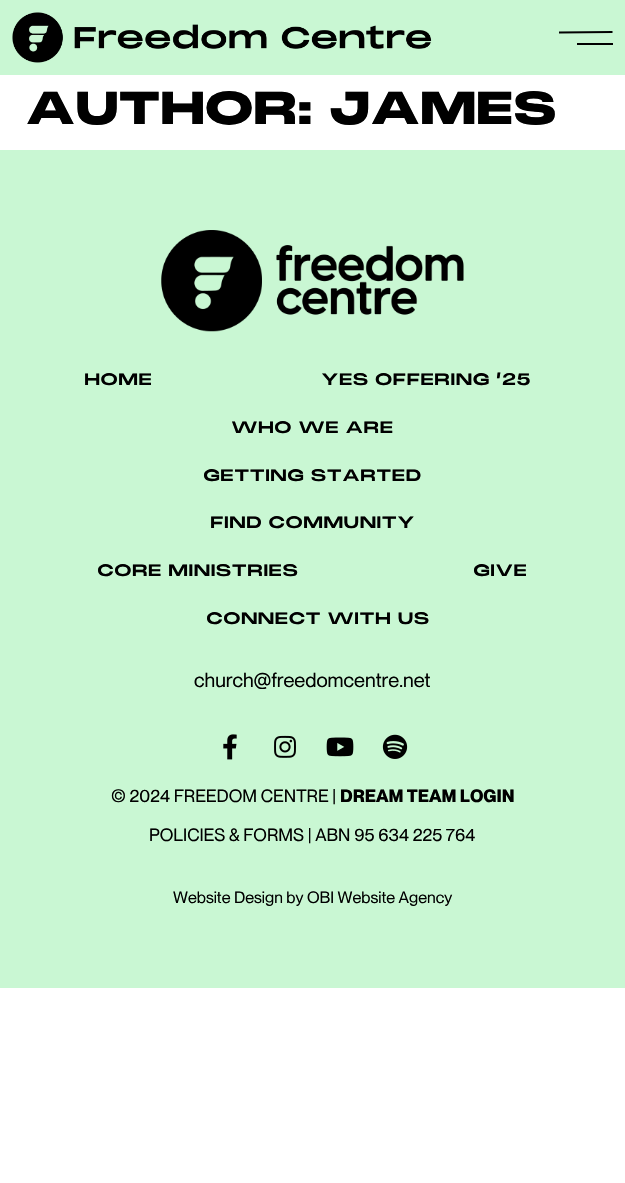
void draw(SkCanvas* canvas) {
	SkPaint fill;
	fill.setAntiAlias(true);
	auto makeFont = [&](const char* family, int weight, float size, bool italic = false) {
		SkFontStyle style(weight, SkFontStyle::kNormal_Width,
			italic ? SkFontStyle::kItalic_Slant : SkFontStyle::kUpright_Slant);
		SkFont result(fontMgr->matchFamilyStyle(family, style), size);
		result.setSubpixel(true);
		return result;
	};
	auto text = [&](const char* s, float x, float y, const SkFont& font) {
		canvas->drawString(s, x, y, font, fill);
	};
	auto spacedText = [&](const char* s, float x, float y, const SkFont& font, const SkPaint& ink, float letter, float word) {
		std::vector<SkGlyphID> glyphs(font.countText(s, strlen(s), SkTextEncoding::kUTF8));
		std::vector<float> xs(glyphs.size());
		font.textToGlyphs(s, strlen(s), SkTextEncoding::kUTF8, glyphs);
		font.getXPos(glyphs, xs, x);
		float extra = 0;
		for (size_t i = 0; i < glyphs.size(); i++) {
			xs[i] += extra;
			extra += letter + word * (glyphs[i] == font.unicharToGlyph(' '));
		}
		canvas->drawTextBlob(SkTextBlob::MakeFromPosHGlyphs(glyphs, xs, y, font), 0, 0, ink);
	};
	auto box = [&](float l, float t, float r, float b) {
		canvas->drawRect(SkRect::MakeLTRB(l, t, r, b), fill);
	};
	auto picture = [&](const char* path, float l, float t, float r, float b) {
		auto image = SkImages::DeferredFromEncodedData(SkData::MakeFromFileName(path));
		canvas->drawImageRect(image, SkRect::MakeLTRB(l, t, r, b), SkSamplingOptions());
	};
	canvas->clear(0xFFFFFFFF);
	fill.setColor(0xFFC9F7D3);
	box(0, 0, 625, 75);
	picture("image0.png", 12, 12, 432, 63);
	fill.setStyle(SkPaint::kStroke_Style);
	fill.setStrokeWidth(2);
	fill.setColor(0xFF000000);
	canvas->drawPath(SkPathBuilder().moveTo(559, 32.5f).lineTo(612.5f, 32).detach(), fill);
	fill.setStyle(SkPaint::kFill_Style);
	box(577, 43, 613, 45);
	fill.setColor(0xFFC9F7D3);
	box(0, 150, 625, 988);
	picture("image1.png", 161, 230, 464, 332);
	picture("image2.png", 223, 734, 237, 760);
	picture("image3.png", 274, 735, 296, 758);
	picture("image4.png", 326, 737, 354, 757);
	picture("image5.png", 382, 734, 408, 759);
	auto font1 = makeFont("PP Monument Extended", 900, 45);
	fill.setColor(0xFF000000);
	spacedText("AUTHOR: JAMES", 25, 124, font1, fill, -1.25f, 0);
	auto font2 = makeFont("PP Monument Extended", 600, 16.25f);
	text("HOME", 84, 385, font2);
	text("YES OFFERING ’25", 321, 385, font2);
	text("WHO WE ARE", 231, 433, font2);
	text("GETTING STARTED", 203, 481, font2);
	text("FIND COMMUNITY", 210, 528, font2);
	text("CORE MINISTRIES", 97, 576, font2);
	text("GIVE", 473, 576, font2);
	text("CONNECT WITH US", 206, 624, font2);
	auto font3 = makeFont("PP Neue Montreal", 400, 20);
	text("church@freedomcentre.net", 194, 687, font3);
	auto font4 = makeFont("PP Neue Montreal", 400, 17.5f);
	text("© 2024 FREEDOM CENTRE |", 111, 802, font4);
	auto font5 = makeFont("PP Neue Montreal", 700, 17.5f);
	text("DREAM TEAM LOGIN", 340, 802, font5);
	text("POLICIES & FORMS | ABN 95 634 225 764", 149, 841, font4);
	auto font6 = makeFont("PP Neue Montreal", 400, 16.25f);
	text("Website Design by OBI Website Agency", 173, 903, font6);
}
